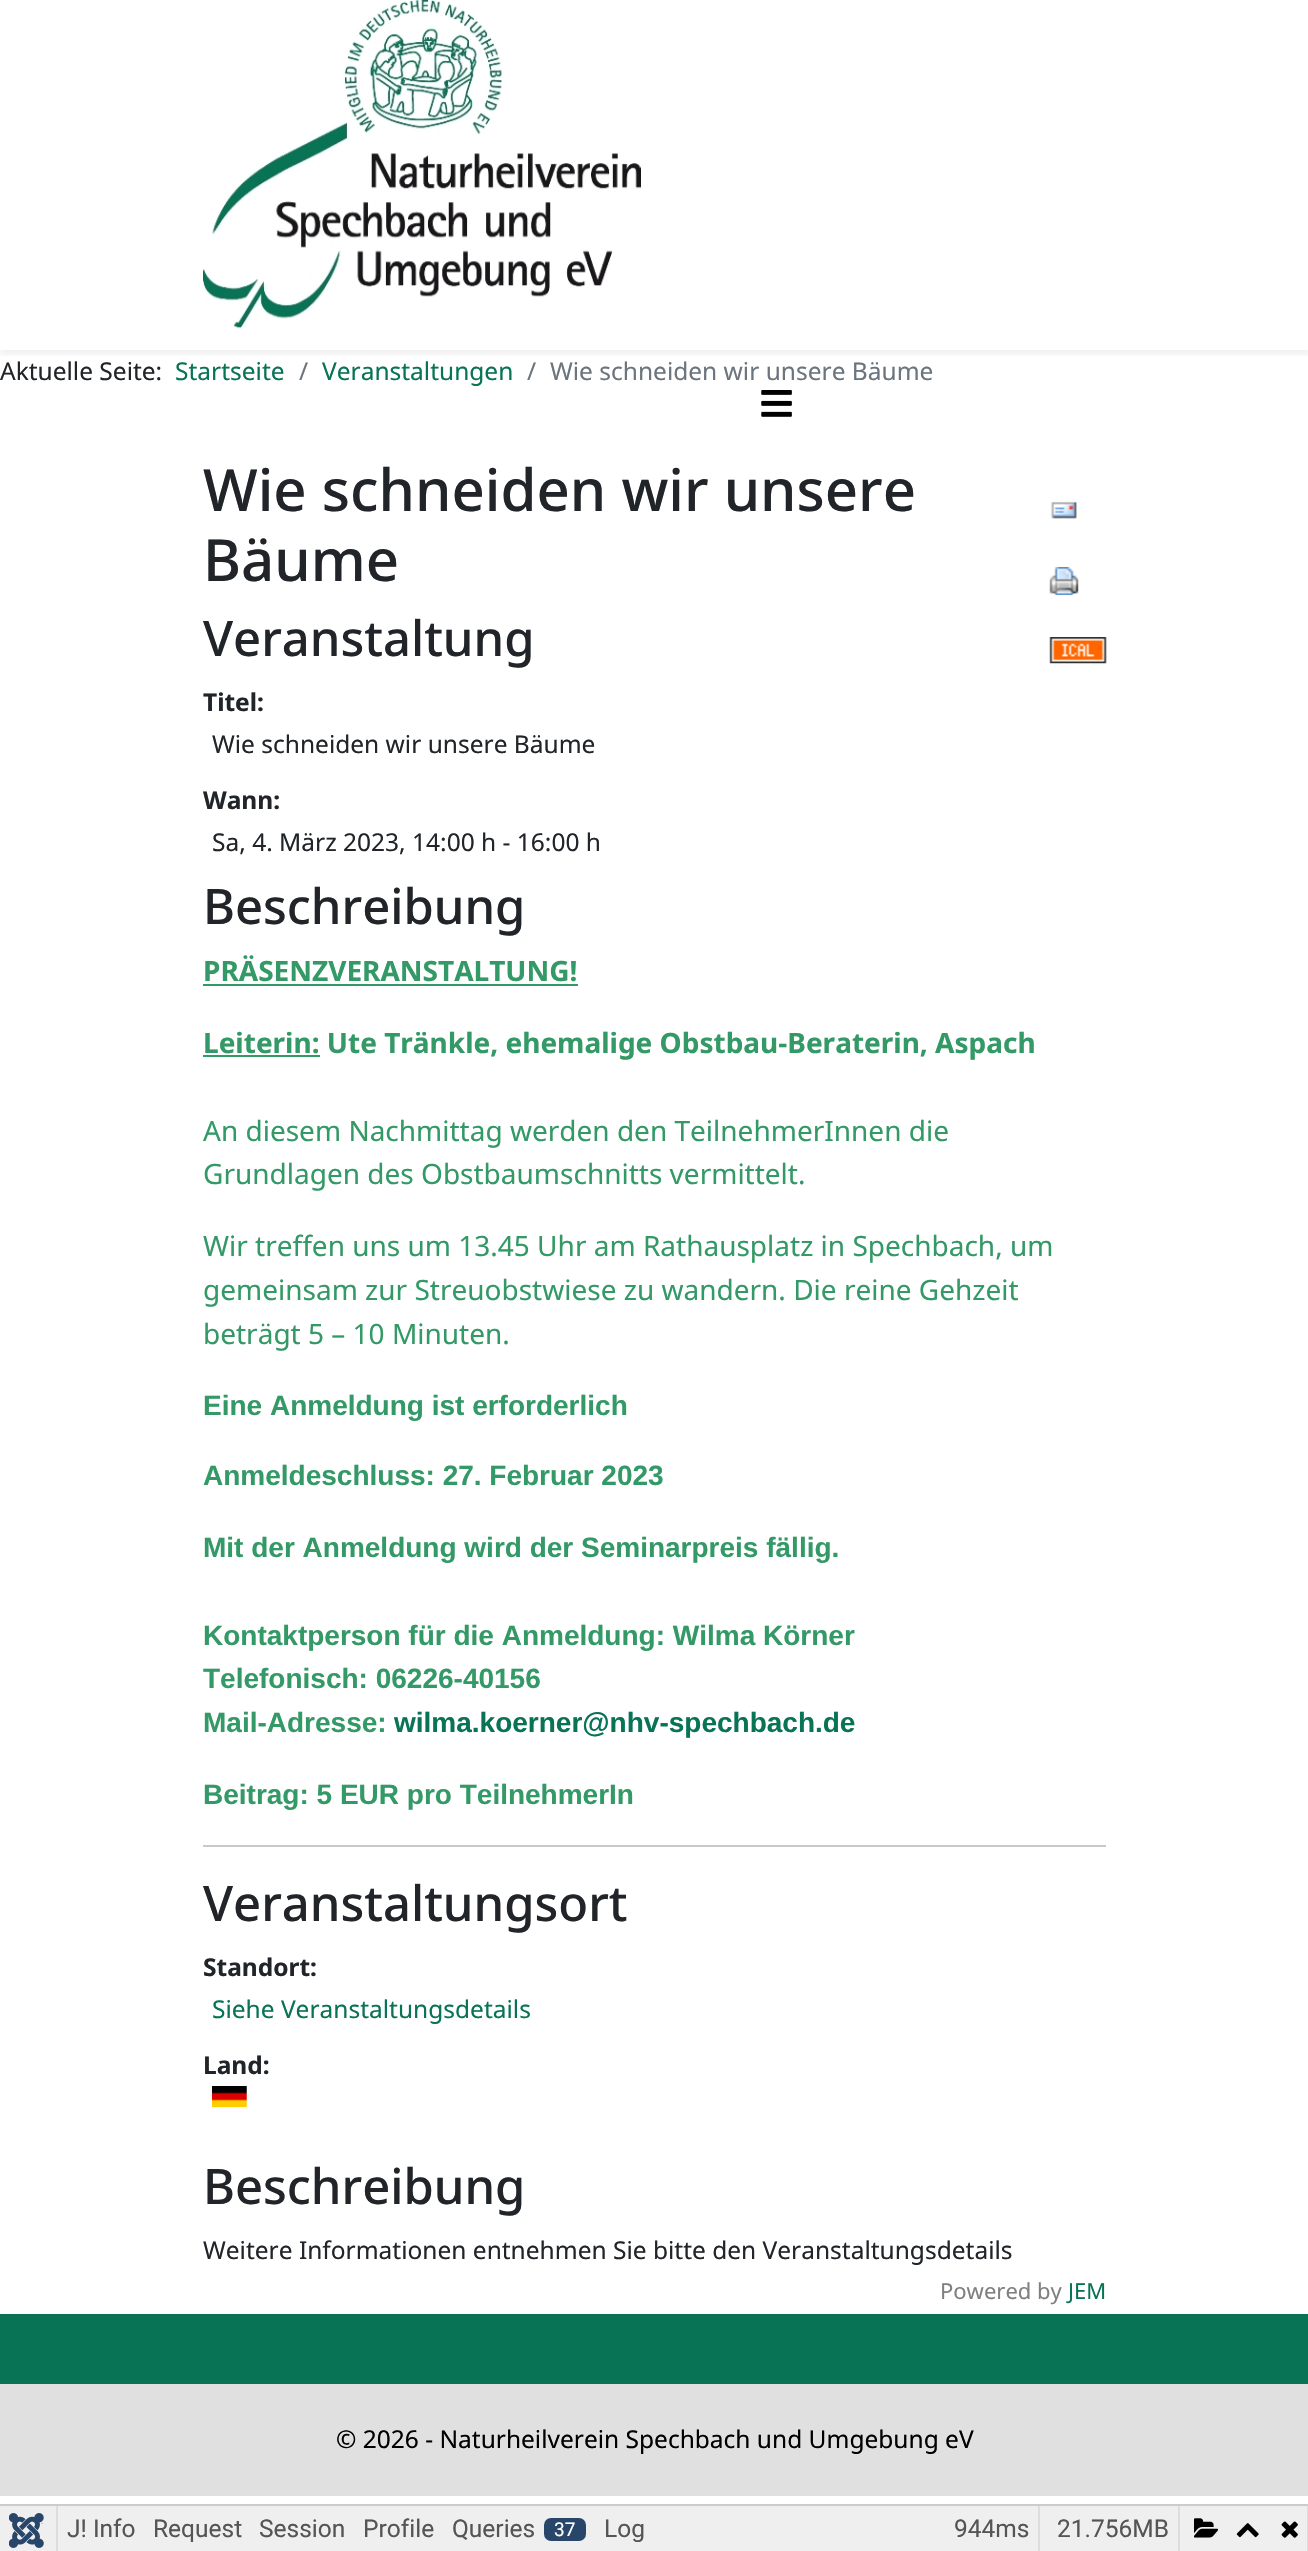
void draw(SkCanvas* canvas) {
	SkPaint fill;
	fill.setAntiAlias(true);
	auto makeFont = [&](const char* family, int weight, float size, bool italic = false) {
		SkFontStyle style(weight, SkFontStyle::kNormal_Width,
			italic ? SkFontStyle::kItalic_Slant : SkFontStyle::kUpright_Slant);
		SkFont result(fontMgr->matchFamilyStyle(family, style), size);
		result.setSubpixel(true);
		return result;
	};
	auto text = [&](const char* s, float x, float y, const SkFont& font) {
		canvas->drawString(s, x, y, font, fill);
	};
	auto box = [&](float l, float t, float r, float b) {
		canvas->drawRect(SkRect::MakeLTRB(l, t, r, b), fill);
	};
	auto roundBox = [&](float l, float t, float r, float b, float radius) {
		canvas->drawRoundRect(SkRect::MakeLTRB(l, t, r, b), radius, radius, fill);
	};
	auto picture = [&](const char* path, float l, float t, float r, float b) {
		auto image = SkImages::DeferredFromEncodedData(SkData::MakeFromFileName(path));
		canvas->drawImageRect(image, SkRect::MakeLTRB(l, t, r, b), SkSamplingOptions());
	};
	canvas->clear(0xFFFFFFFF);
	canvas->save();
	canvas->clipRect(SkRect::MakeLTRB(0, 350, 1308, 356));
	fill.setColor(0x0D000000);
	fill.setMaskFilter(SkMaskFilter::MakeBlur(kNormal_SkBlurStyle, 2.5f));
	canvas->drawRect(SkRect::MakeLTRB(0, 5, 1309, 355), fill);
	fill.setMaskFilter(nullptr);
	canvas->restore();
	picture("image0.png", 203, 0, 641, 328);
	picture("image1.png", 761, 390, 792, 417);
	picture("image2.png", 1050, 501, 1077, 519);
	picture("image3.png", 1049, 567, 1079, 595);
	picture("image4.png", 1049, 637, 1107, 664);
	fill.setColor(0xFF339966);
	box(203, 984, 578, 986);
	box(203, 1055, 320, 1057);
	fill.setColor(0xFFC8C9CA);
	box(203, 1845, 1106, 1847);
	picture("image5.png", 212, 2086, 247, 2107);
	fill.setColor(0xFF087355);
	box(0, 2314, 1308, 2384);
	fill.setColor(0xFFE0E0E0);
	box(0, 2384, 1308, 2496);
	fill.setColor(0xFFCCCCCC);
	box(0, 2504, 1308, 2506);
	fill.setColor(0xFFEFEFEF);
	box(58, 2506, 1307, 2551);
	box(0, 2506, 56, 2551);
	picture("image6.png", 9, 2513, 44, 2548);
	fill.setColor(0xFFDDDDDD);
	box(56, 2506, 58, 2551);
	fill.setColor(0xFF28466A);
	roundBox(544, 2518, 586, 2541, 7);
	fill.setColor(0xFFDDDDDD);
	box(1038, 2506, 1040, 2551);
	box(1178, 2506, 1180, 2551);
	picture("image7.png", 1194, 2518, 1218, 2538);
	picture("image8.png", 1236, 2523, 1259, 2538);
	picture("image9.png", 1281, 2521, 1298, 2538);
	box(1307, 2506, 1308, 2551);
	auto font1 = makeFont("Noto Sans", 400, 24.5f);
	fill.setColor(0xFF212529);
	text("Aktuelle Seite:", 0, 380, font1);
	fill.setColor(0xFF087355);
	text("Startseite", 175, 380, font1);
	fill.setColor(0xFF6C757D);
	text("/", 299, 380, font1);
	fill.setColor(0xFF087355);
	text("Veranstaltungen", 322, 380, font1);
	fill.setColor(0xFF6C757D);
	text("/", 527, 380, font1);
	text("Wie schneiden wir unsere Bäume", 550, 380, font1);
	auto font2 = makeFont("Noto Sans", 500, 58.1f);
	fill.setColor(0xFF212529);
	text("Wie schneiden wir unsere", 203, 511, font2);
	text("Bäume", 203, 581, font2);
	auto font3 = makeFont("Noto Sans", 500, 48.9f);
	text("Veranstaltung", 203, 656, font3);
	auto font4 = makeFont("Noto Sans", 700, 24.5f);
	text("Titel:", 203, 711, font4);
	text("Wie schneiden wir unsere Bäume", 212, 753, font1);
	text("Wann:", 203, 809, font4);
	text("Sa, 4. März 2023, 14:00 h - 16:00 h", 212, 851, font1);
	text("Beschreibung", 203, 924, font3);
	auto font5 = makeFont("Noto Sans", 700, 28);
	fill.setColor(0xFF339966);
	text("PRÄSENZVERANSTALTUNG!", 203, 981, font5);
	text("Leiterin: Ute Tränkle, ehemalige Obstbau-Beraterin, Aspach", 203, 1053, font5);
	auto font6 = makeFont("Noto Sans", 400, 28);
	text("An diesem Nachmittag werden den TeilnehmerInnen die", 203, 1141, font6);
	text("Grundlagen des Obstbaumschnitts vermittelt.", 203, 1184, font6);
	text("Wir treffen uns um 13.45 Uhr am Rathausplatz in Spechbach, um", 203, 1256, font6);
	text("gemeinsam zur Streuobstwiese zu wandern. Die reine Gehzeit", 203, 1300, font6);
	text("beträgt 5 – 10 Minuten.", 203, 1344, font6);
	auto font7 = makeFont("Liberation Sans", 700, 28);
	text("Eine Anmeldung ist erforderlich", 203, 1415, font7);
	text("Anmeldeschluss: 27. Februar 2023", 203, 1485, font7);
	text("Mit der Anmeldung wird der Seminarpreis fällig.", 203, 1557, font7);
	text("Kontaktperson für die Anmeldung: Wilma Körner", 203, 1645, font7);
	text("Telefonisch: 06226-40156", 203, 1688, font7);
	text("Mail-Adresse:", 203, 1732, font7);
	fill.setColor(0xFF087355);
	text("wilma.koerner@nhv-spechbach.de", 394, 1732, font7);
	fill.setColor(0xFF339966);
	text("Beitrag: 5 EUR pro TeilnehmerIn", 203, 1804, font7);
	fill.setColor(0xFF212529);
	text("Veranstaltungsort", 203, 1921, font3);
	text("Standort:", 203, 1976, font4);
	fill.setColor(0xFF087355);
	text("Siehe Veranstaltungsdetails", 212, 2018, font1);
	fill.setColor(0xFF212529);
	text("Land:", 203, 2074, font4);
	text("Beschreibung", 203, 2204, font3);
	text("Weitere Informationen entnehmen Sie bitte den Veranstaltungsdetails", 203, 2259, font1);
	auto font8 = makeFont("Noto Sans", 400, 22);
	fill.setColor(0xFF808080);
	text("Powered by", 940, 2299, font8);
	fill.setColor(0xFF087355);
	text("JEM", 1068, 2299, font8);
	fill.setColor(0xFF000000);
	text("© 2026 - Naturheilverein Spechbach und Umgebung eV", 336, 2448, font1);
	auto font9 = makeFont("Roboto", 400, 24.5f);
	fill.setColor(0xFF555555);
	text("J! Info", 67, 2537, font9);
	text("Request", 153, 2537, font9);
	text("Session", 259, 2537, font9);
	text("Profile", 363, 2537, font9);
	text("Queries", 452, 2537, font9);
	auto font10 = makeFont("Roboto", 400, 19);
	fill.setColor(0xFFFFFFFF);
	text("37", 554, 2536, font10);
	fill.setColor(0xFF555555);
	text("Log", 604, 2537, font9);
	text("944ms", 954, 2537, font9);
	text("21.756MB", 1057, 2537, font9);
}
